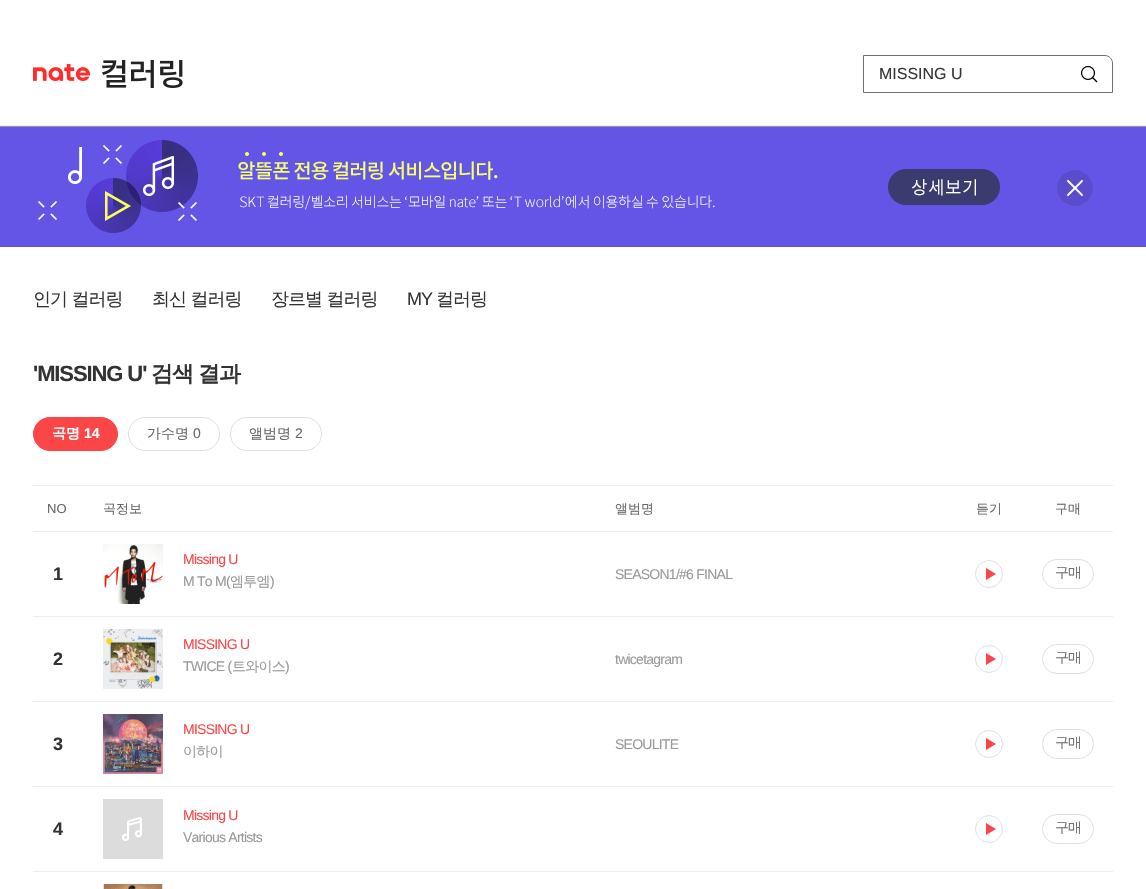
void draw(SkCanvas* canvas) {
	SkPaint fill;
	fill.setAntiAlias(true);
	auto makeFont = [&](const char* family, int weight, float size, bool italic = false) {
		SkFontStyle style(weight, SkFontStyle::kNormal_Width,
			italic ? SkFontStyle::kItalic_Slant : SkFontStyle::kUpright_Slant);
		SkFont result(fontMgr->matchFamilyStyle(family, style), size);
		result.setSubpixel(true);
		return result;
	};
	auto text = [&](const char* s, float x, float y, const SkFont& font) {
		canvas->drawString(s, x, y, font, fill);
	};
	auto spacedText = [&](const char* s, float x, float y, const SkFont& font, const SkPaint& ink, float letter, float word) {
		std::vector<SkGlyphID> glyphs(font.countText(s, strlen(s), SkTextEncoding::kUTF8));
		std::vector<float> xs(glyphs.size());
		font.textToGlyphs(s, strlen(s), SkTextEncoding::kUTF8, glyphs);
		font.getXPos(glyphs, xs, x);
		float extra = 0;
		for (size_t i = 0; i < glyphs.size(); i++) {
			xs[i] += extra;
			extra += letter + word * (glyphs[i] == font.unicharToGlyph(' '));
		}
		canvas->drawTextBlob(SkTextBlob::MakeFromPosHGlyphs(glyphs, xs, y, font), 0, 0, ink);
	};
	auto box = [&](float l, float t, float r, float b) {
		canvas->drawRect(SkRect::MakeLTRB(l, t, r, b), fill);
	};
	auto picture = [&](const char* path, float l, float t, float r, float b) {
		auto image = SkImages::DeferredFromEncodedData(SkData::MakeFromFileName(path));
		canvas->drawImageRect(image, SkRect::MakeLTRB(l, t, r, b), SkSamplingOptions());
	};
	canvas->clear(0xFFFFFFFF);
	fill.setColor(0xFFEEEEEE);
	box(0, 125, 1146, 126);
	picture("image0.png", 33, 64, 90, 81);
	picture("image1.png", 102, 60, 183, 88);
	fill.setStyle(SkPaint::kStroke_Style);
	fill.setStrokeWidth(1);
	fill.setColor(0xFF707070);
	canvas->drawPath(SkPathBuilder().moveTo(863.5f, 55.5f).lineTo(1105, 55.5f).cubicTo(1109, 55.5f, 1112.5f, 59, 1112.5f, 63).lineTo(1112.5f, 92.5f).lineTo(863.5f, 92.5f).close().detach(), fill);
	picture("image2.png", 1081, 66, 1098, 83);
	fill.setStyle(SkPaint::kFill_Style);
	fill.setColor(0xFF999999);
	box(0, 126, 1146, 127);
	fill.setColor(0xFF6356E6);
	box(0, 127, 1146, 247);
	picture("image3.png", 38, 140, 1000, 233);
	picture("image4.png", 1057, 170, 1093, 206);
	fill.setColor(0xFFFA4647);
	canvas->drawRoundRect(SkRect::MakeLTRB(33.5f, 417.5f, 117.5f, 450.5f), 16.5f, 16.5f, fill);
	fill.setStyle(SkPaint::kStroke_Style);
	canvas->drawRoundRect(SkRect::MakeLTRB(33.5f, 417.5f, 117.5f, 450.5f), 16.5f, 16.5f, fill);
	fill.setColor(0xFFDFDFDF);
	canvas->drawRoundRect(SkRect::MakeLTRB(128.5f, 417.5f, 219.5f, 450.5f), 16.5f, 16.5f, fill);
	canvas->drawRoundRect(SkRect::MakeLTRB(230.5f, 417.5f, 321.5f, 450.5f), 16.5f, 16.5f, fill);
	fill.setStyle(SkPaint::kFill_Style);
	fill.setColor(0xFFEEEEEE);
	box(33, 485, 1113, 486);
	box(33, 531, 1113, 532);
	fill.setColor(0xFFEDEDED);
	box(33, 616, 1113, 617);
	picture("image5.png", 103, 544, 163, 604);
	picture("image6.png", 975, 560, 1003, 588);
	fill.setStyle(SkPaint::kStroke_Style);
	fill.setColor(0xFFDFDFDF);
	canvas->drawRoundRect(SkRect::MakeLTRB(1042.5f, 559.5f, 1093.5f, 588.5f), 14.5f, 14.5f, fill);
	fill.setStyle(SkPaint::kFill_Style);
	fill.setColor(0xFFEDEDED);
	box(33, 701, 1113, 702);
	picture("image7.png", 103, 629, 163, 689);
	picture("image6.png", 975, 645, 1003, 673);
	fill.setStyle(SkPaint::kStroke_Style);
	fill.setColor(0xFFDFDFDF);
	canvas->drawRoundRect(SkRect::MakeLTRB(1042.5f, 644.5f, 1093.5f, 673.5f), 14.5f, 14.5f, fill);
	fill.setStyle(SkPaint::kFill_Style);
	fill.setColor(0xFFEDEDED);
	box(33, 786, 1113, 787);
	picture("image8.png", 103, 714, 163, 774);
	picture("image6.png", 975, 730, 1003, 758);
	fill.setStyle(SkPaint::kStroke_Style);
	fill.setColor(0xFFDFDFDF);
	canvas->drawRoundRect(SkRect::MakeLTRB(1042.5f, 729.5f, 1093.5f, 758.5f), 14.5f, 14.5f, fill);
	fill.setStyle(SkPaint::kFill_Style);
	fill.setColor(0xFFEDEDED);
	box(33, 871, 1113, 872);
	picture("image9.png", 103, 799, 163, 859);
	picture("image6.png", 975, 815, 1003, 843);
	fill.setStyle(SkPaint::kStroke_Style);
	fill.setColor(0xFFDFDFDF);
	canvas->drawRoundRect(SkRect::MakeLTRB(1042.5f, 814.5f, 1093.5f, 843.5f), 14.5f, 14.5f, fill);
	picture("image10.png", 103, 884, 163, 889);
	auto font1 = makeFont("Liberation Sans", 400, 16);
	fill.setStyle(SkPaint::kFill_Style);
	fill.setColor(0xFF333333);
	text("MISSING U", 879, 79, font1);
	auto font2 = makeFont("WenQuanYi Zen Hei", 500, 18);
	spacedText("인기 컬러링", 33, 305, font2, fill, -1, 0);
	spacedText("최신 컬러링", 152, 305, font2, fill, -1, 0);
	spacedText("장르별 컬러링", 271, 305, font2, fill, -1, 0);
	auto font3 = makeFont("Liberation Sans", 400, 18);
	spacedText("MY", 407, 305, font3, fill, -1, 0);
	spacedText("컬러링", 436, 305, font2, fill, -1, 0);
	auto font4 = makeFont("Liberation Sans", 700, 22);
	spacedText("'MISSING U'", 33, 381, font4, fill, -1.1f, 0);
	auto font5 = makeFont("WenQuanYi Zen Hei", 700, 22);
	spacedText("검색", 151, 381, font5, fill, -1.1f, 0);
	spacedText("결과", 198, 381, font5, fill, -1.1f, 0);
	auto font6 = makeFont("WenQuanYi Zen Hei", 700, 14);
	fill.setColor(0xFFFFFFFF);
	text("곡명", 52, 438, font6);
	auto font7 = makeFont("Liberation Sans", 700, 14);
	text("14", 84, 438, font7);
	auto font8 = makeFont("WenQuanYi Zen Hei", 500, 14);
	fill.setColor(0xFF666666);
	text("가수명", 147, 438, font8);
	auto font9 = makeFont("Liberation Sans", 400, 14);
	text("0", 193, 438, font9);
	text("앨범명", 249, 438, font8);
	text("2", 295, 438, font9);
	auto font10 = makeFont("Liberation Sans", 400, 13);
	text("NO", 47, 513, font10);
	auto font11 = makeFont("WenQuanYi Zen Hei", 500, 13);
	text("곡정보", 103, 513, font11);
	text("앨범명", 615, 513, font11);
	text("듣기", 976, 513, font11);
	text("구매", 1055, 513, font11);
	auto font12 = makeFont("Liberation Sans", 700, 18);
	fill.setColor(0xFF333333);
	spacedText("1", 53, 580, font12, fill, -1, 0);
	fill.setColor(0xFFFA4647);
	spacedText("Missing U", 183, 564, font9, fill, -0.75f, 0);
	fill.setColor(0xFF999999);
	spacedText("M To M(", 183, 586, font9, fill, -0.75f, 0);
	spacedText("엠투엠", 230, 586, font8, fill, -0.75f, 0);
	spacedText(")", 270, 586, font9, fill, -0.75f, 0);
	spacedText("SEASON1/#6 FINAL", 615, 579, font9, fill, -0.75f, 0);
	fill.setColor(0xFF707070);
	spacedText("구매", 1055, 577, font8, fill, -1, 0);
	fill.setColor(0xFF333333);
	spacedText("2", 53, 665, font12, fill, -1, 0);
	fill.setColor(0xFFFA4647);
	spacedText("MISSING U", 183, 649, font9, fill, -0.75f, 0);
	fill.setColor(0xFF999999);
	spacedText("TWICE (", 183, 671, font9, fill, -0.75f, 0);
	spacedText("트와이스", 232, 671, font8, fill, -0.75f, 0);
	spacedText(")", 285, 671, font9, fill, -0.75f, 0);
	spacedText("twicetagram", 615, 664, font9, fill, -0.75f, 0);
	fill.setColor(0xFF707070);
	spacedText("구매", 1055, 662, font8, fill, -1, 0);
	fill.setColor(0xFF333333);
	spacedText("3", 53, 750, font12, fill, -1, 0);
	fill.setColor(0xFFFA4647);
	spacedText("MISSING U", 183, 734, font9, fill, -0.75f, 0);
	fill.setColor(0xFF999999);
	spacedText("이하이", 183, 756, font8, fill, -0.75f, 0);
	spacedText("SEOULITE", 615, 749, font9, fill, -0.75f, 0);
	fill.setColor(0xFF707070);
	spacedText("구매", 1055, 747, font8, fill, -1, 0);
	fill.setColor(0xFF333333);
	spacedText("4", 53, 835, font12, fill, -1, 0);
	fill.setColor(0xFFFA4647);
	spacedText("Missing U", 183, 820, font9, fill, -0.75f, 0);
	fill.setColor(0xFF999999);
	spacedText("Various Artists", 183, 842, font9, fill, -0.75f, 0);
	fill.setColor(0xFF707070);
	spacedText("구매", 1055, 832, font8, fill, -1, 0);
}
